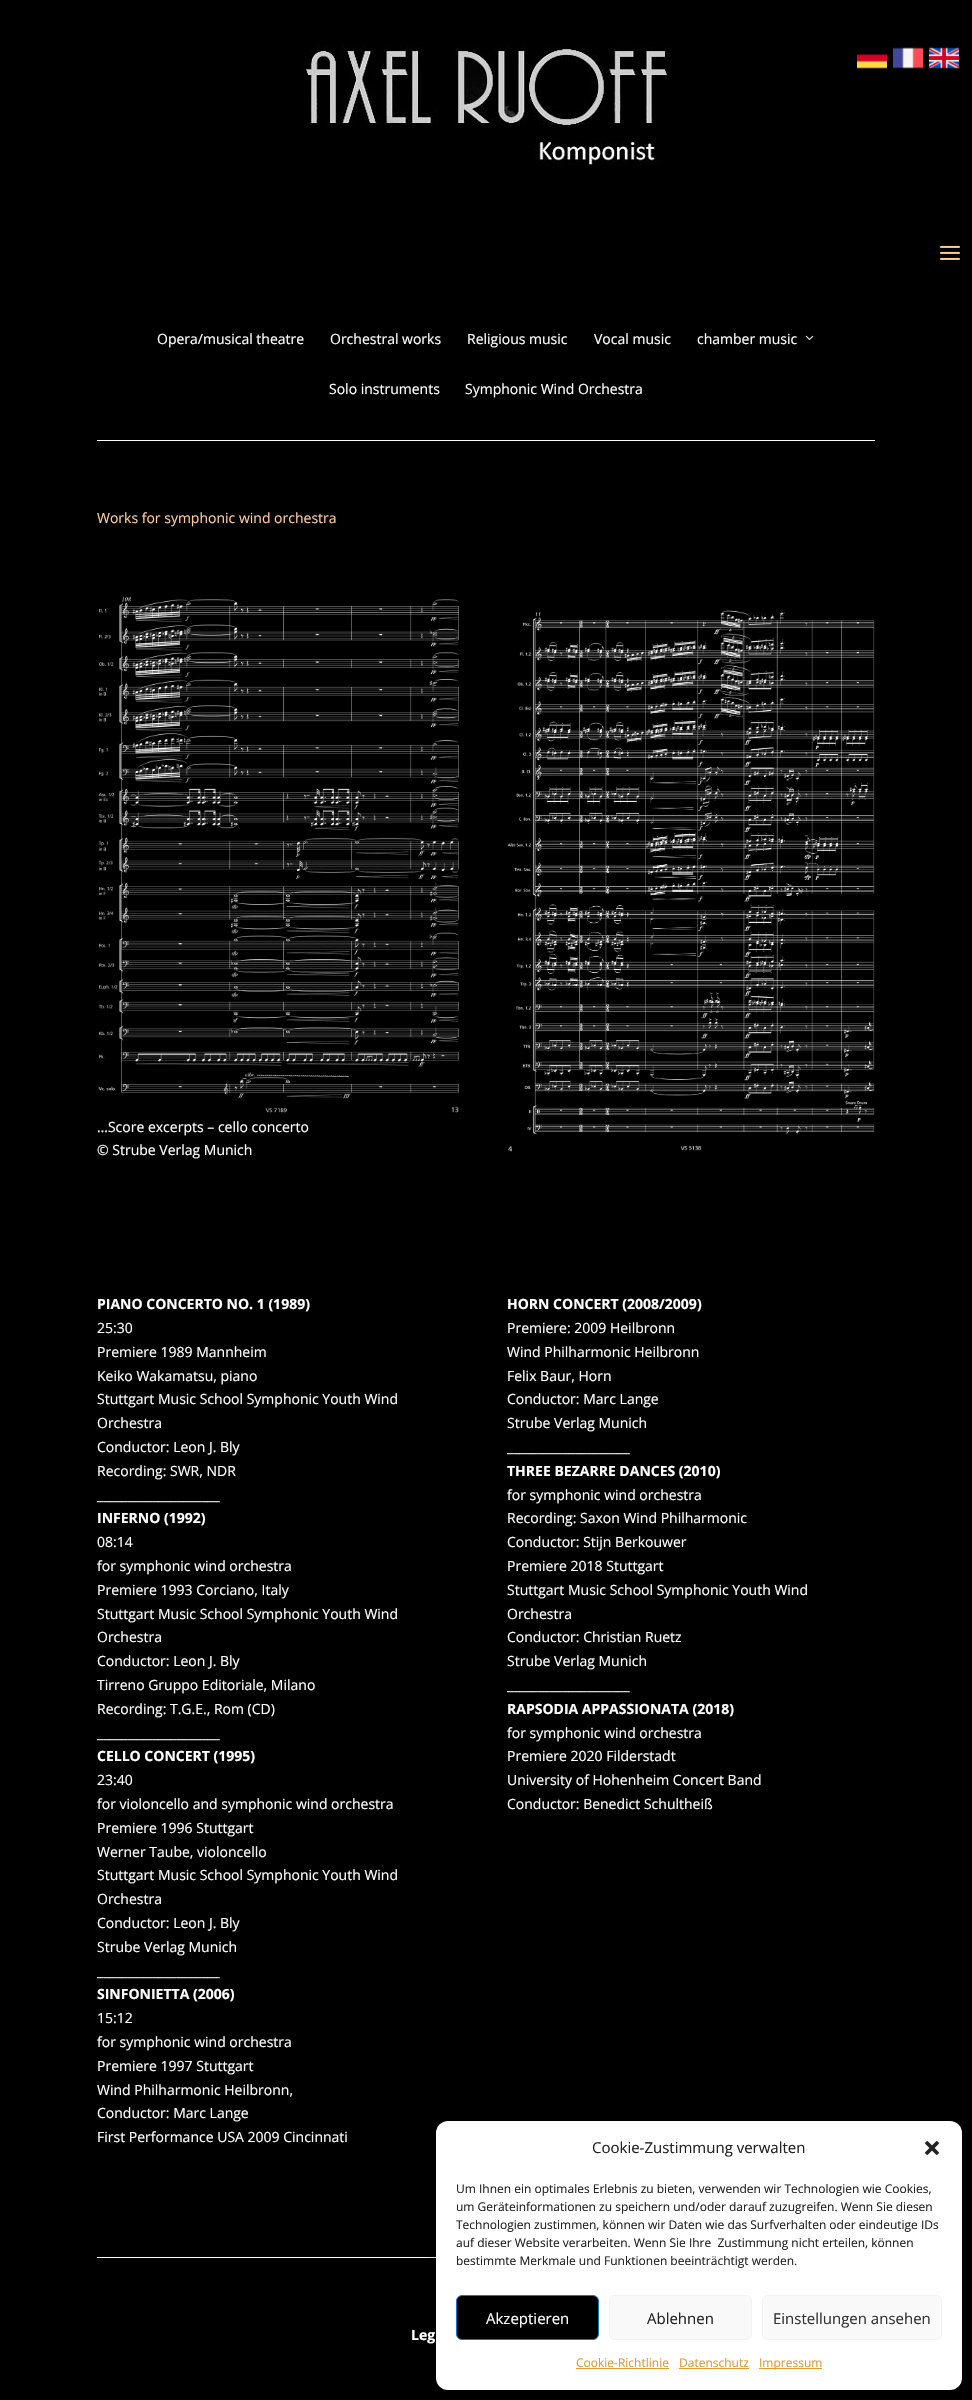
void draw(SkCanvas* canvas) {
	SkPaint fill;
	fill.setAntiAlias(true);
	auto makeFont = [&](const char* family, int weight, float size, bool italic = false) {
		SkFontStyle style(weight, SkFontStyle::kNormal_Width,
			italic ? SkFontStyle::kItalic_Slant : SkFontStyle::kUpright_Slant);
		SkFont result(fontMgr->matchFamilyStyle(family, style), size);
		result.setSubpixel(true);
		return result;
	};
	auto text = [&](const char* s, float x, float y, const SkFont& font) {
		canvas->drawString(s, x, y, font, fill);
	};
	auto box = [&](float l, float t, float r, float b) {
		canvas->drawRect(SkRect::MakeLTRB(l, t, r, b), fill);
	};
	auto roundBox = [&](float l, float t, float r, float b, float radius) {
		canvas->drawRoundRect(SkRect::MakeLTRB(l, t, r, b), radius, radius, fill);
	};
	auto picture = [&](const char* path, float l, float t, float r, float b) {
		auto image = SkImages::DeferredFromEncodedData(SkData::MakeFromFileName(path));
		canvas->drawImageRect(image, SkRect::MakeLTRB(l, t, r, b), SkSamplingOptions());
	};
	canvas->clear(0xFF000000);
	picture("image0.png", 302, 46, 670, 166);
	picture("image1.png", 940, 245, 960, 260);
	picture("image2.png", 857, 54, 887, 69);
	picture("image3.png", 893, 47, 923, 69);
	picture("image4.png", 929, 47, 959, 69);
	picture("image5.png", 805, 335, 814, 340);
	fill.setColor(0xFFFFFFFF);
	box(97, 440, 875, 441);
	picture("image6.png", 98, 596, 459, 1113);
	picture("image7.png", 507, 610, 875, 1152);
	box(97, 2257, 436, 2258);
	fill.setColor(0x3B000000);
	fill.setMaskFilter(SkMaskFilter::MakeBlur(kNormal_SkBlurStyle, 3));
	canvas->drawRoundRect(SkRect::MakeLTRB(436, 2127, 962, 2396), 12, 12, fill);
	fill.setMaskFilter(nullptr);
	fill.setColor(0x30000000);
	fill.setMaskFilter(SkMaskFilter::MakeBlur(kNormal_SkBlurStyle, 10));
	canvas->drawRoundRect(SkRect::MakeLTRB(436, 2131, 962, 2400), 12, 12, fill);
	fill.setMaskFilter(nullptr);
	fill.setColor(0xFFFFFFFF);
	roundBox(436, 2121, 962, 2390, 12);
	picture("image8.png", 925, 2141, 939, 2155);
	fill.setColor(0xFF000000);
	canvas->drawRoundRect(SkRect::MakeLTRB(456.5f, 2295.5f, 598.5f, 2339.5f), 5.5f, 5.5f, fill);
	fill.setStyle(SkPaint::kStroke_Style);
	fill.setStrokeWidth(1);
	fill.setColor(0xFF1E73BE);
	canvas->drawRoundRect(SkRect::MakeLTRB(456.5f, 2295.5f, 598.5f, 2339.5f), 5.5f, 5.5f, fill);
	fill.setStyle(SkPaint::kFill_Style);
	fill.setColor(0xFFF9F9F9);
	canvas->drawRoundRect(SkRect::MakeLTRB(609.5f, 2295.5f, 751.5f, 2339.5f), 5.5f, 5.5f, fill);
	fill.setStyle(SkPaint::kStroke_Style);
	fill.setColor(0xFFF2F2F2);
	canvas->drawRoundRect(SkRect::MakeLTRB(609.5f, 2295.5f, 751.5f, 2339.5f), 5.5f, 5.5f, fill);
	fill.setStyle(SkPaint::kFill_Style);
	fill.setColor(0xFFF9F9F9);
	canvas->drawRoundRect(SkRect::MakeLTRB(762.5f, 2295.5f, 941.5f, 2339.5f), 5.5f, 5.5f, fill);
	fill.setStyle(SkPaint::kStroke_Style);
	fill.setColor(0xFFF2F2F2);
	canvas->drawRoundRect(SkRect::MakeLTRB(762.5f, 2295.5f, 941.5f, 2339.5f), 5.5f, 5.5f, fill);
	fill.setStyle(SkPaint::kFill_Style);
	fill.setColor(0xFFDD9933);
	box(576, 2368, 669, 2369);
	box(679, 2368, 749, 2369);
	box(759, 2368, 822, 2369);
	auto font1 = makeFont("Open Sans", 400, 14);
	fill.setColor(0xFFFFFFFF);
	text("Opera/musical theatre", 157, 344, font1);
	text("Orchestral works", 330, 344, font1);
	text("Religious music", 467, 344, font1);
	text("Vocal music", 594, 344, font1);
	text("chamber music", 697, 344, font1);
	text("Solo instruments", 329, 394, font1);
	text("Symphonic Wind Orchestra", 465, 394, font1);
	fill.setColor(0xFFFFCC99);
	text("Works for symphonic wind orchestra", 97, 523, font1);
	fill.setColor(0xFFFFFFFF);
	text("…Score excerpts – cello concerto", 97, 1132, font1);
	text("© Strube Verlag Munich", 97, 1155, font1);
	auto font2 = makeFont("Open Sans", 700, 14);
	text("PIANO CONCERTO NO. 1 (1989)", 97, 1309, font2);
	text("25:30", 97, 1333, font1);
	text("Premiere 1989 Mannheim", 97, 1357, font1);
	text("Keiko Wakamatsu, piano", 97, 1381, font1);
	text("Stuttgart Music School Symphonic Youth Wind", 97, 1404, font1);
	text("Orchestra", 97, 1428, font1);
	text("Conductor: Leon J. Bly", 97, 1452, font1);
	text("Recording: SWR, NDR", 97, 1476, font1);
	text("____________________", 97, 1500, font1);
	text("INFERNO (1992)", 97, 1523, font2);
	text("08:14", 97, 1547, font1);
	text("for symphonic wind orchestra", 97, 1571, font1);
	text("Premiere 1993 Corciano, Italy", 97, 1595, font1);
	text("Stuttgart Music School Symphonic Youth Wind", 97, 1619, font1);
	text("Orchestra", 97, 1642, font1);
	text("Conductor: Leon J. Bly", 97, 1666, font1);
	text("Tirreno Gruppo Editoriale, Milano", 97, 1690, font1);
	text("Recording: T.G.E., Rom (CD)", 97, 1714, font1);
	text("____________________", 97, 1738, font1);
	text("CELLO CONCERT (1995)", 97, 1761, font2);
	text("23:40", 97, 1785, font1);
	text("for violoncello and symphonic wind orchestra", 97, 1809, font1);
	text("Premiere 1996 Stuttgart", 97, 1833, font1);
	text("Werner Taube, violoncello", 97, 1857, font1);
	text("Stuttgart Music School Symphonic Youth Wind", 97, 1880, font1);
	text("Orchestra", 97, 1904, font1);
	text("Conductor: Leon J. Bly", 97, 1928, font1);
	text("Strube Verlag Munich", 97, 1952, font1);
	text("____________________", 97, 1976, font1);
	text("SINFONIETTA (2006)", 97, 1999, font2);
	text("15:12", 97, 2023, font1);
	text("for symphonic wind orchestra", 97, 2047, font1);
	text("Premiere 1997 Stuttgart", 97, 2071, font1);
	text("Wind Philharmonic Heilbronn,", 97, 2095, font1);
	text("Conductor: Marc Lange", 97, 2118, font1);
	text("First Performance USA 2009 Cincinnati", 97, 2142, font1);
	text("HORN CONCERT (2008/2009)", 507, 1309, font2);
	text("Premiere: 2009 Heilbronn", 507, 1333, font1);
	text("Wind Philharmonic Heilbronn", 507, 1357, font1);
	text("Felix Baur, Horn", 507, 1381, font1);
	text("Conductor: Marc Lange", 507, 1404, font1);
	text("Strube Verlag Munich", 507, 1428, font1);
	text("____________________", 507, 1452, font1);
	text("THREE BEZARRE DANCES (2010)", 507, 1476, font2);
	text("for symphonic wind orchestra", 507, 1500, font1);
	text("Recording: Saxon Wind Philharmonic", 507, 1523, font1);
	text("Conductor: Stijn Berkouwer", 507, 1547, font1);
	text("Premiere 2018 Stuttgart", 507, 1571, font1);
	text("Stuttgart Music School Symphonic Youth Wind", 507, 1595, font1);
	text("Orchestra", 507, 1619, font1);
	text("Conductor: Christian Ruetz", 507, 1642, font1);
	text("Strube Verlag Munich", 507, 1666, font1);
	text("____________________", 507, 1690, font1);
	text("RAPSODIA APPASSIONATA (2018)", 507, 1714, font2);
	text("for symphonic wind orchestra", 507, 1738, font1);
	text("Premiere 2020 Filderstadt", 507, 1761, font1);
	text("University of Hohenheim Concert Band", 507, 1785, font1);
	text("Conductor: Benedict Schultheiß", 507, 1809, font1);
	text("Leg", 411, 2340, font2);
	auto font3 = makeFont("Open Sans", 400, 15);
	fill.setColor(0xFF222222);
	text("Cookie-Zustimmung verwalten", 592, 2153, font3);
	auto font4 = makeFont("Open Sans", 400, 12);
	text("Um Ihnen ein optimales Erlebnis zu bieten, verwenden wir Technologien wie Cookies,", 456, 2193, font4);
	text("um Geräteinformationen zu speichern und/oder darauf zuzugreifen. Wenn Sie diesen", 456, 2211, font4);
	text("Technologien zustimmen, können wir Daten wie das Surfverhalten oder eindeutige IDs", 456, 2229, font4);
	text("auf dieser Website verarbeiten. Wenn Sie Ihre  Zustimmung nicht erteilen, können", 456, 2247, font4);
	text("bestimmte Merkmale und Funktionen beeinträchtigt werden.", 456, 2265, font4);
	fill.setColor(0xFFFFFFFF);
	text("Akzeptieren", 486, 2324, font3);
	fill.setColor(0xFF222222);
	text("Ablehnen", 647, 2324, font3);
	fill.setColor(0xFF333333);
	text("Einstellungen ansehen", 773, 2324, font3);
	fill.setColor(0xFFDD9933);
	text("Cookie-Richtlinie", 576, 2367, font4);
	text("Datenschutz", 679, 2367, font4);
	text("Impressum", 759, 2367, font4);
}
